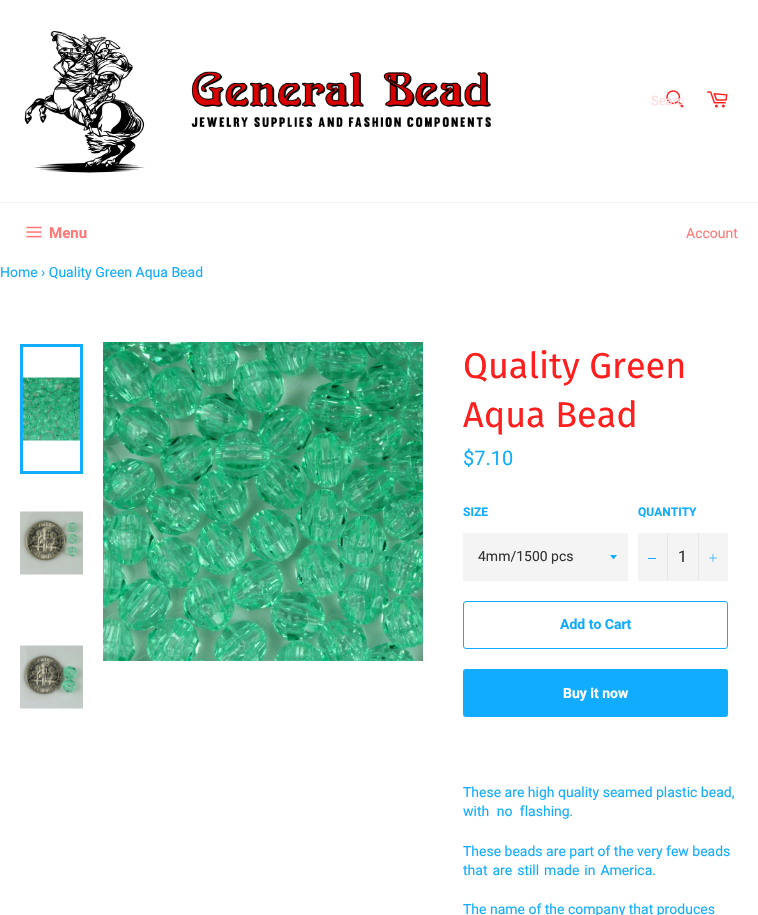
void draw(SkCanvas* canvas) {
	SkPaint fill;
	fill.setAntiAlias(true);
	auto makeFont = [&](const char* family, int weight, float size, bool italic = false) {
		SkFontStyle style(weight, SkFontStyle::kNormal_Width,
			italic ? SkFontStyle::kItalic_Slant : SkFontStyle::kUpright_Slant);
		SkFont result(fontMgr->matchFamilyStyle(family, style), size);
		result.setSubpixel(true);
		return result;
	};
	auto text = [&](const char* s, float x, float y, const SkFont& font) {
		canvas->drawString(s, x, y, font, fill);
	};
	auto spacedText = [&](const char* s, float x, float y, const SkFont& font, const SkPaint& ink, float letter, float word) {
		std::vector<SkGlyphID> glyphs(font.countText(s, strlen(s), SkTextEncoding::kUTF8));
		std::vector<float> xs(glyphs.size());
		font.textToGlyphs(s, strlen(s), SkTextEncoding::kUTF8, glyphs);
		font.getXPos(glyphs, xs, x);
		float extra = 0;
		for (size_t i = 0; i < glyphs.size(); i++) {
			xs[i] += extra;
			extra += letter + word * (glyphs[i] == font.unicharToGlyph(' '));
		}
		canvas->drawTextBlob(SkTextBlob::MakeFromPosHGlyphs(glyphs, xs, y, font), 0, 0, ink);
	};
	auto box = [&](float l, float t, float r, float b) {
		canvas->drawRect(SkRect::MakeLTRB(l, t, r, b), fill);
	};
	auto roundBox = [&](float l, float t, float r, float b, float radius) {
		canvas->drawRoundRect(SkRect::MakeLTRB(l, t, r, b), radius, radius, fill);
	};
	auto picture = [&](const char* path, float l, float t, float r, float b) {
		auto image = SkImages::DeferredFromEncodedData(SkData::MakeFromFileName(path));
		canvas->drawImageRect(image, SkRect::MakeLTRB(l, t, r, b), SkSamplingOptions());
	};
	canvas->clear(0xFFFFFFFF);
	picture("image0.png", 24, 30, 491, 173);
	picture("image1.png", 666, 90, 684, 108);
	picture("image2.png", 706, 91, 728, 108);
	fill.setColor(0xFFF2F2F2);
	box(0, 202, 758, 203);
	picture("image3.png", 26, 226, 42, 238);
	picture("image4.png", 23, 377, 80, 441);
	fill.setStyle(SkPaint::kStroke_Style);
	fill.setStrokeWidth(3);
	fill.setColor(0xFF12ACFF);
	canvas->drawRect(SkRect::MakeLTRB(21.5f, 345.5f, 81.5f, 472.5f), fill);
	picture("image5.png", 20, 511, 83, 575);
	picture("image6.png", 20, 645, 83, 709);
	picture("image7.png", 103, 342, 423, 661);
	fill.setStyle(SkPaint::kFill_Style);
	fill.setColor(0xFFF4F4F4);
	box(463, 533, 628, 581);
	fill.setColor(0xFF12ACFF);
	canvas->drawPath(SkPathBuilder().moveTo(610, 555).cubicTo(614.5f, 560.5f, 612.5f, 560.5f, 617, 555).close().detach(), fill);
	fill.setColor(0xFFF4F4F4);
	box(638, 533, 728, 581);
	fill.setColor(0xFFE7E7E7);
	box(667, 533, 668, 581);
	fill.setColor(0xFF12ACFF);
	box(648, 558, 656, 559);
	fill.setColor(0xFFE7E7E7);
	box(698, 533, 699, 581);
	picture("image8.png", 709, 554, 717, 562);
	fill.setStyle(SkPaint::kStroke_Style);
	fill.setStrokeWidth(1);
	fill.setColor(0xFF12ACFF);
	canvas->drawRoundRect(SkRect::MakeLTRB(463.5f, 601.5f, 727.5f, 648.5f), 2.5f, 2.5f, fill);
	fill.setStyle(SkPaint::kFill_Style);
	roundBox(463, 669, 728, 717, 3);
	canvas->save();
	canvas->clipRect(SkRect::MakeLTRB(651, 93, 683, 108));
	auto font1 = makeFont("Roboto", 400, 13);
	fill.setColor(0xFFFFDCDC);
	text("Searc", 651, 105, font1);
	canvas->restore();
	auto font2 = makeFont("Roboto", 700, 15);
	fill.setColor(0xFFFF7979);
	text("Menu", 49, 238, font2);
	auto font3 = makeFont("Roboto", 400, 14);
	text("Account", 686, 238, font3);
	fill.setColor(0xFF12ACFF);
	text("Home › Quality Green Aqua Bead", 0, 277, font3);
	auto font4 = makeFont("Fira Sans", 400, 36);
	fill.setColor(0xFFFF1F1F);
	text("Quality Green", 463, 378, font4);
	text("Aqua Bead", 463, 427, font4);
	auto font5 = makeFont("Roboto", 400, 20);
	fill.setColor(0xFF12ACFF);
	text("$7.10", 463, 465, font5);
	auto font6 = makeFont("Roboto", 700, 12);
	text("SIZE", 463, 516, font6);
	fill.setColor(0xFF333333);
	text("4mm/1500 pcs", 478, 561, font3);
	fill.setColor(0xFF12ACFF);
	text("QUANTITY", 638, 516, font6);
	auto font7 = makeFont("Roboto", 400, 16);
	fill.setColor(0xFF333333);
	text("1", 678, 562, font7);
	auto font8 = makeFont("Roboto", 700, 14);
	fill.setColor(0xFF12ACFF);
	text("Add to Cart", 560, 629, font8);
	fill.setColor(0xFFFFFFFF);
	text("Buy it now", 563, 698, font8);
	fill.setColor(0xFF12ACFF);
	text("These are high quality seamed plastic bead,", 463, 797, font3);
	spacedText("with no flashing.", 463, 816, font3, fill, 0, 4);
	text("These beads are part of the very few beads", 463, 856, font3);
	spacedText("that are still made in America.", 463, 875, font3, fill, 0, 1.5f);
	text("The name of the company that produces", 463, 914, font3);
}
